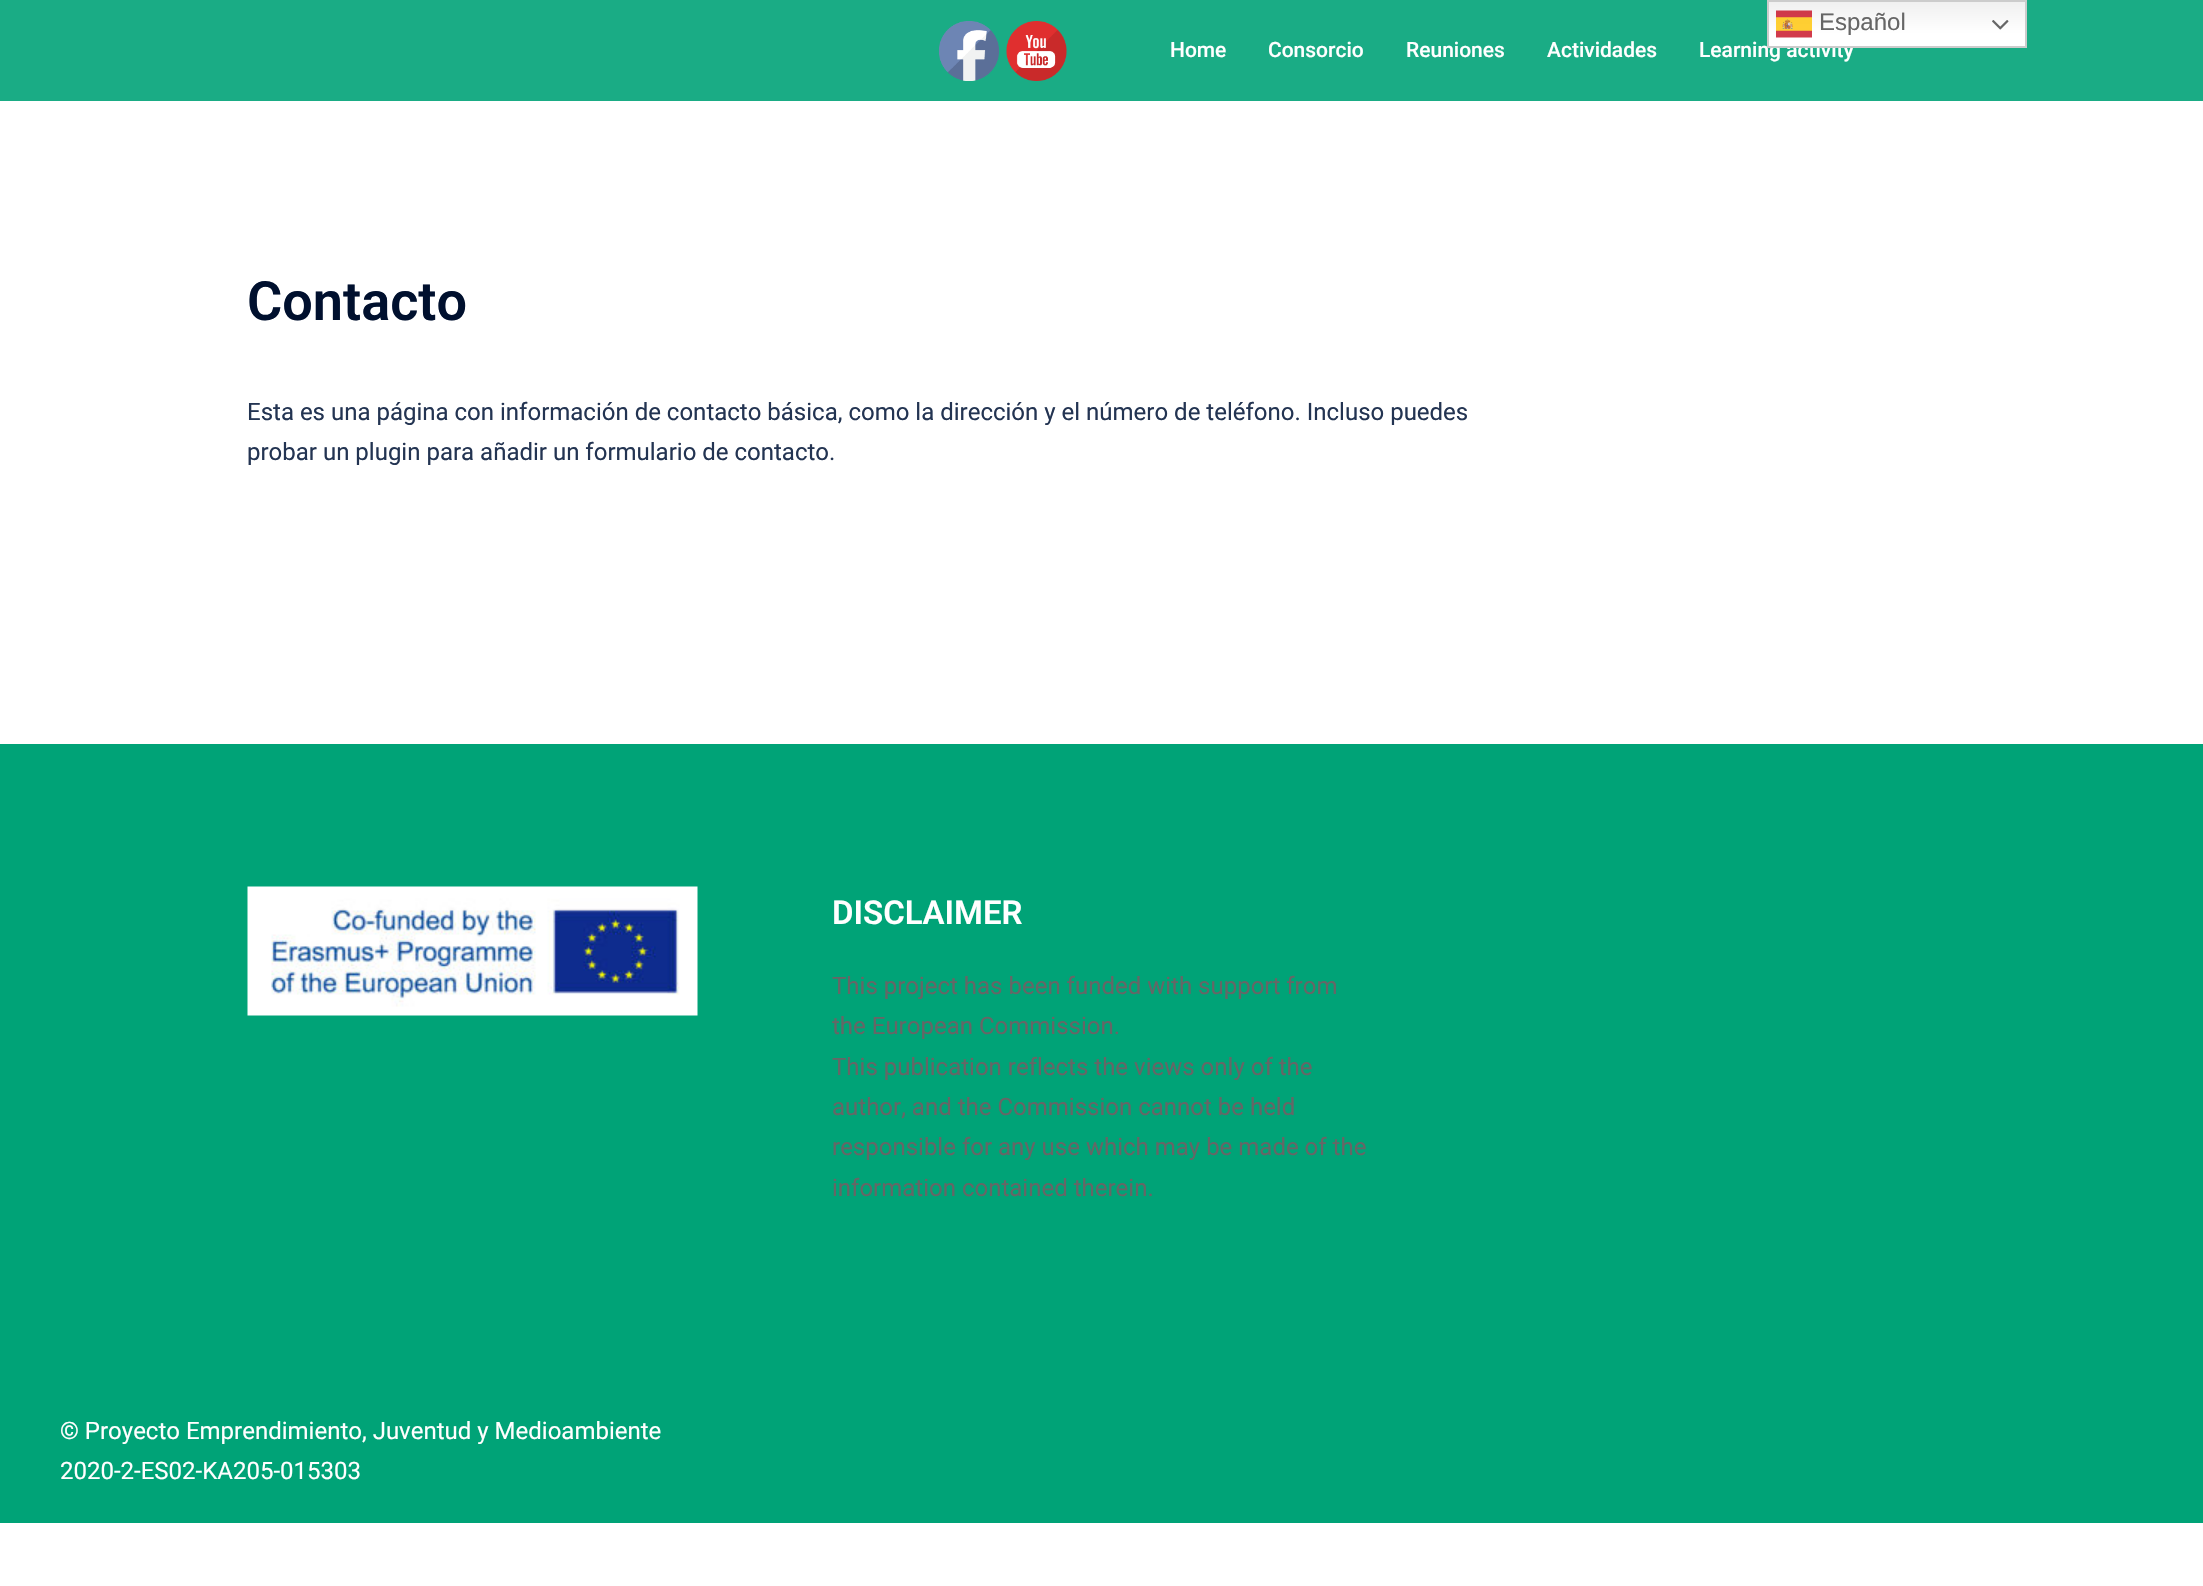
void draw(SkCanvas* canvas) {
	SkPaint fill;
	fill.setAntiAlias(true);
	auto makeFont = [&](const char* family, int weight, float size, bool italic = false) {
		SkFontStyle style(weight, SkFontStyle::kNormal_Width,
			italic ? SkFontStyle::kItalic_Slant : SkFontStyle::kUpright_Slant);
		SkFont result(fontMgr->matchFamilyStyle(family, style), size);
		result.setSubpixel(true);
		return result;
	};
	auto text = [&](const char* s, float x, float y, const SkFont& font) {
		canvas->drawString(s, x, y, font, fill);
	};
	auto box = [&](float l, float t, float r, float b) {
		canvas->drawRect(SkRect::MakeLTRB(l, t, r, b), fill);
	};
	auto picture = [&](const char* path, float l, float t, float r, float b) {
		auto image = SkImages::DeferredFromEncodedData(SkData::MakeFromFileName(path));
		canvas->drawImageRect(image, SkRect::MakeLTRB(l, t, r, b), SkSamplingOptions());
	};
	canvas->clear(0xFFFFFFFF);
	fill.setColor(0xFF1AAC85);
	box(0, 0, 2203, 101);
	picture("image0.png", 939, 21, 999, 81);
	picture("image1.png", 1006, 21, 1067, 81);
	fill.setColor(0xFF00A377);
	box(0, 744, 2203, 1523);
	picture("image4.png", 247, 886, 698, 1016);
	auto font1 = makeFont("Roboto", 500, 21);
	fill.setColor(0xFFFFFFFF);
	text("Home", 1170, 57, font1);
	text("Consorcio", 1268, 57, font1);
	text("Reuniones", 1406, 57, font1);
	text("Actividades", 1547, 57, font1);
	text("Learning activity", 1699, 57, font1);
	{
		const SkColor colors[] = {0xFFEFEFEF, 0xFFFFFFFF};
		const float stops[] = {0, 0.7f};
		const SkPoint ends[] = {{1897, 0}, {1897, 48}};
		fill.setShader(SkGradientShader::MakeLinear(ends, colors, stops, 2, SkTileMode::kClamp));
		fill.setAlpha(255);
	}
	box(1769, 2, 2025, 46);
	fill.setStyle(SkPaint::kStroke_Style);
	fill.setStrokeWidth(2);
	fill.setShader(nullptr);
	fill.setColor(0xFFCCCCCC);
	canvas->drawRect(SkRect::MakeLTRB(1768, 1, 2026, 47), fill);
	picture("image3.png", 1992, 20, 2009, 30);
	picture("image2.png", 1776, 10, 1812, 38);
	auto font2 = makeFont("Liberation Sans", 400, 24);
	fill.setStyle(SkPaint::kFill_Style);
	fill.setColor(0xFF666666);
	text("Español", 1819, 30, font2);
	auto font3 = makeFont("Roboto", 600, 54);
	fill.setColor(0xFF00102E);
	text("Contacto", 247, 320, font3);
	auto font4 = makeFont("Roboto", 400, 24);
	fill.setColor(0xFF233452);
	text("Esta es una página con información de contacto básica, como la dirección y el número de teléfono. Incluso puedes", 247, 420, font4);
	text("probar un plugin para añadir un formulario de contacto.", 247, 460, font4);
	auto font5 = makeFont("Roboto", 600, 33);
	fill.setColor(0xFFFFFFFF);
	text("DISCLAIMER", 832, 924, font5);
	fill.setColor(0xFF666666);
	text("This project has been funded with support from", 832, 994, font4);
	text("the European Commission.", 832, 1034, font4);
	text("This publication reflects the views only of the", 832, 1075, font4);
	text("author, and the Commission cannot be held", 832, 1115, font4);
	text("responsible for any use which may be made of the", 832, 1155, font4);
	text("information contained therein.", 832, 1196, font4);
	fill.setColor(0xFFFFFFFF);
	text("© Proyecto Emprendimiento, Juventud y Medioambiente", 60, 1439, font4);
	text("2020-2-ES02-KA205-015303", 60, 1479, font4);
}
